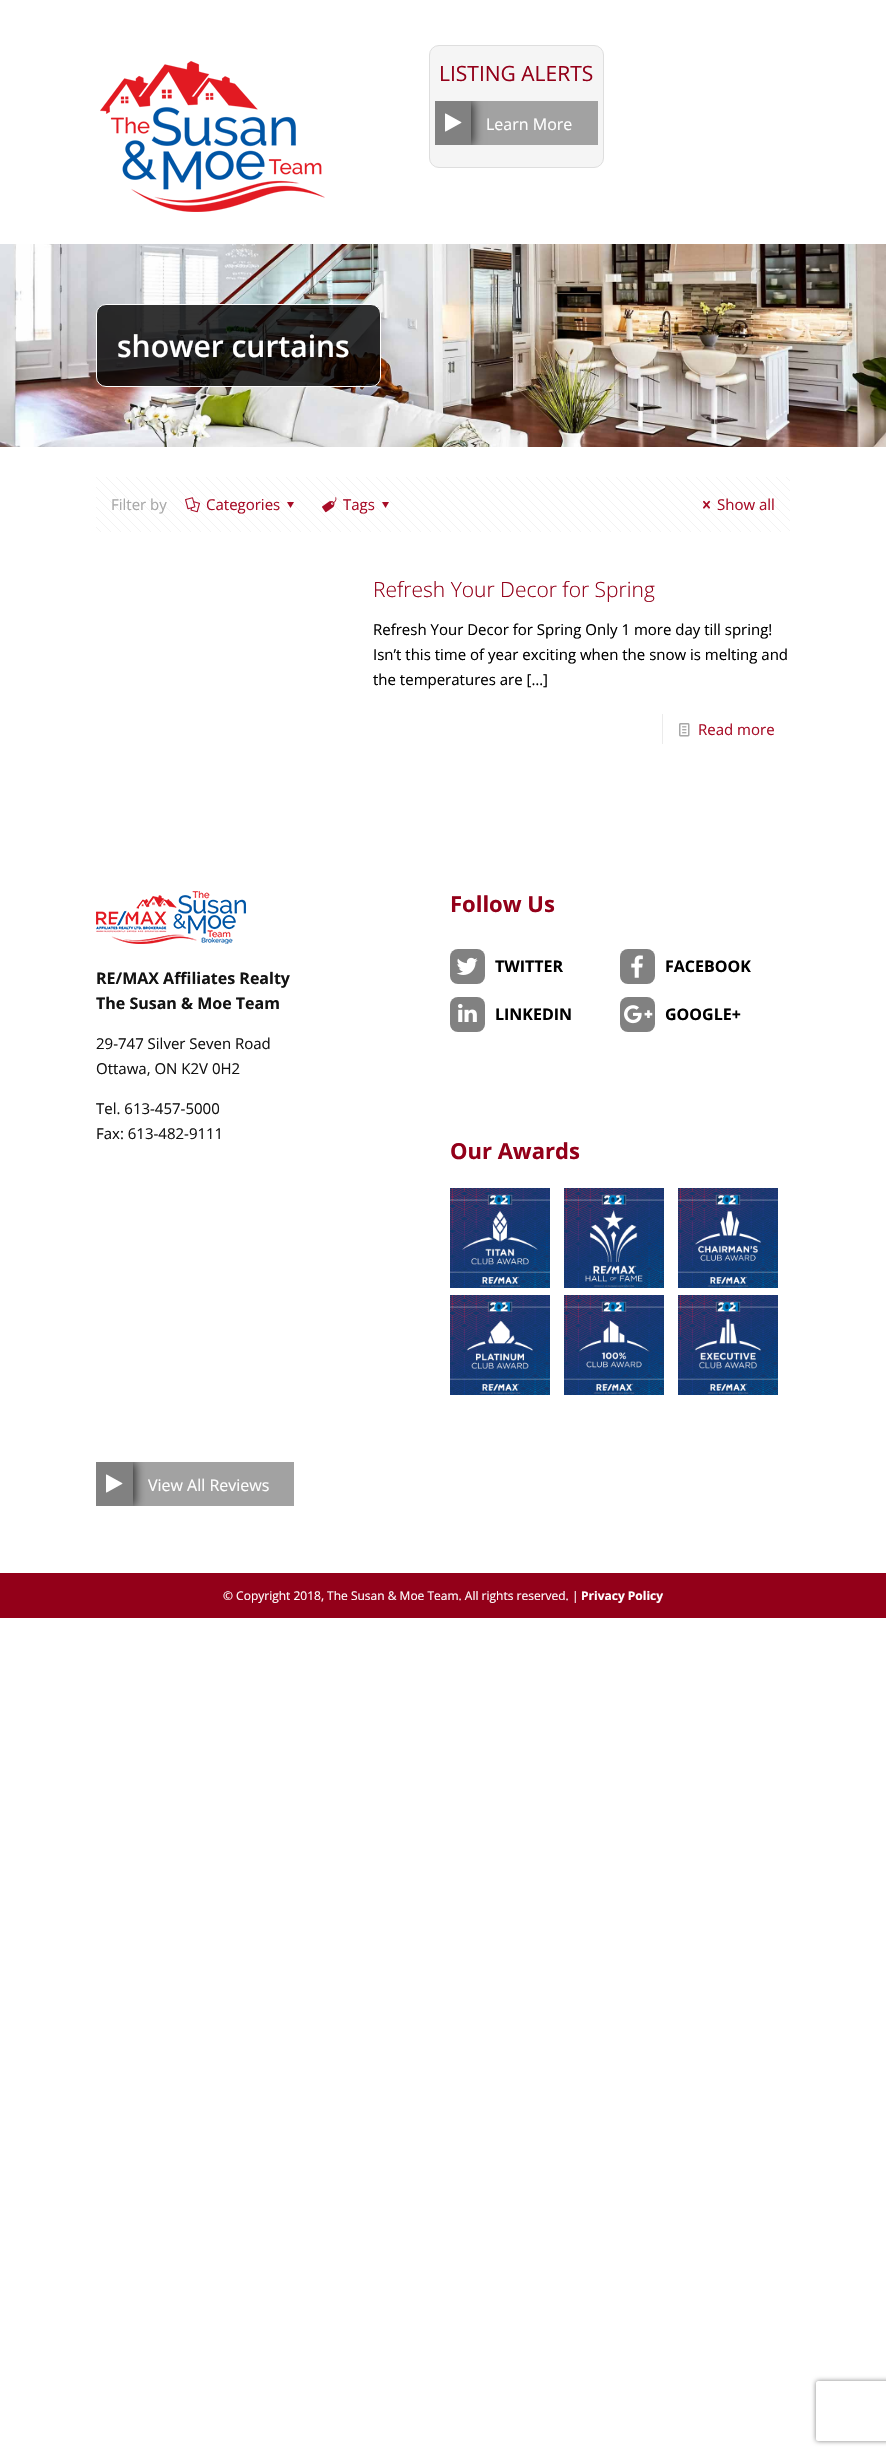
void draw(SkCanvas* canvas) {
	SkPaint fill;
	fill.setAntiAlias(true);
	auto makeFont = [&](const char* family, int weight, float size, bool italic = false) {
		SkFontStyle style(weight, SkFontStyle::kNormal_Width,
			italic ? SkFontStyle::kItalic_Slant : SkFontStyle::kUpright_Slant);
		SkFont result(fontMgr->matchFamilyStyle(family, style), size);
		result.setSubpixel(true);
		return result;
	};
	auto text = [&](const char* s, float x, float y, const SkFont& font) {
		canvas->drawString(s, x, y, font, fill);
	};
	auto box = [&](float l, float t, float r, float b) {
		canvas->drawRect(SkRect::MakeLTRB(l, t, r, b), fill);
	};
	auto roundBox = [&](float l, float t, float r, float b, float radius) {
		canvas->drawRoundRect(SkRect::MakeLTRB(l, t, r, b), radius, radius, fill);
	};
	auto picture = [&](const char* path, float l, float t, float r, float b) {
		auto image = SkImages::DeferredFromEncodedData(SkData::MakeFromFileName(path));
		canvas->drawImageRect(image, SkRect::MakeLTRB(l, t, r, b), SkSamplingOptions());
	};
	canvas->clear(0xFFFFFFFF);
	picture("image0.png", 100, 61, 325, 212);
	fill.setColor(0xFFF5F5F5);
	canvas->drawRoundRect(SkRect::MakeLTRB(429.5f, 45.5f, 603.5f, 167.5f), 9.5f, 9.5f, fill);
	fill.setStyle(SkPaint::kStroke_Style);
	fill.setStrokeWidth(1);
	fill.setColor(0xFFDEDEDE);
	canvas->drawRoundRect(SkRect::MakeLTRB(429.5f, 45.5f, 603.5f, 167.5f), 9.5f, 9.5f, fill);
	fill.setStyle(SkPaint::kFill_Style);
	fill.setColor(0xFFA2A2A2);
	box(471, 101, 598, 145);
	canvas->save();
	canvas->clipRect(SkRect::MakeLTRB(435, 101, 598, 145));
	fill.setColor(0xBF000000);
	fill.setMaskFilter(SkMaskFilter::MakeBlur(kNormal_SkBlurStyle, 5));
	canvas->drawRect(SkRect::MakeLTRB(437, 101, 473, 145), fill);
	fill.setMaskFilter(nullptr);
	canvas->restore();
	fill.setColor(0xFF818181);
	box(435, 101, 471, 145);
	picture("image1.png", 445, 113, 462, 132);
	picture("image2.png", 0, 244, 886, 447);
	fill.setColor(0xCC000000);
	canvas->drawRoundRect(SkRect::MakeLTRB(96.5f, 304.5f, 380.5f, 386.5f), 9.5f, 9.5f, fill);
	fill.setStyle(SkPaint::kStroke_Style);
	fill.setColor(0xFFFFFFFF);
	canvas->drawRoundRect(SkRect::MakeLTRB(96.5f, 304.5f, 380.5f, 386.5f), 9.5f, 9.5f, fill);
	picture("image3.png", 96, 477, 790, 532);
	picture("image4.png", 185, 497, 200, 513);
	fill.setStyle(SkPaint::kFill_Style);
	fill.setColor(0xFFA80D27);
	canvas->drawPath(SkPathBuilder().moveTo(294, 502).lineTo(290.5f, 508).lineTo(287, 502).close().detach(), fill);
	picture("image5.png", 322, 497, 337, 513);
	canvas->drawPath(SkPathBuilder().moveTo(389, 502).lineTo(385.5f, 508).lineTo(382, 502).close().detach(), fill);
	picture("image6.png", 703, 500, 710, 509);
	fill.setColor(0xFFEBEBEB);
	box(662, 714, 663, 744);
	picture("image7.png", 679, 723, 690, 737);
	picture("image8.png", 96, 891, 246, 944);
	fill.setColor(0xFF818181);
	roundBox(450, 949, 485, 984, 8);
	picture("image9.png", 456, 957, 478, 975);
	roundBox(620, 949, 655, 984, 8);
	picture("image10.png", 631, 955, 643, 978);
	roundBox(450, 997, 485, 1032, 8);
	picture("image11.png", 458, 1004, 477, 1022);
	roundBox(620, 997, 655, 1032, 8);
	picture("image12.png", 624, 1005, 653, 1024);
	picture("image13.png", 450, 1188, 550, 1288);
	picture("image14.png", 564, 1188, 664, 1288);
	picture("image15.png", 678, 1188, 778, 1288);
	picture("image16.png", 450, 1295, 550, 1395);
	picture("image17.png", 564, 1295, 664, 1395);
	picture("image18.png", 678, 1295, 778, 1395);
	fill.setColor(0xFFA2A2A2);
	box(133, 1462, 294, 1506);
	canvas->save();
	canvas->clipRect(SkRect::MakeLTRB(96, 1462, 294, 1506));
	fill.setColor(0xBF000000);
	fill.setMaskFilter(SkMaskFilter::MakeBlur(kNormal_SkBlurStyle, 5));
	canvas->drawRect(SkRect::MakeLTRB(98, 1462, 135, 1506), fill);
	fill.setMaskFilter(nullptr);
	canvas->restore();
	fill.setColor(0xFF818181);
	box(96, 1462, 133, 1506);
	picture("image1.png", 106, 1474, 123, 1493);
	fill.setColor(0xFF930019);
	box(0, 1573, 886, 1618);
	canvas->save();
	canvas->clipPath(SkPathBuilder(SkPathFillType::kEvenOdd).moveTo(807, 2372).lineTo(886, 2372).lineTo(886, 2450).lineTo(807, 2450).close().moveTo(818, 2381).lineTo(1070, 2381).cubicTo(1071, 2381, 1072, 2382, 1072, 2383).lineTo(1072, 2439).cubicTo(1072, 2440, 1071, 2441, 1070, 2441).lineTo(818, 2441).cubicTo(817, 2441, 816, 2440, 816, 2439).lineTo(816, 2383).cubicTo(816, 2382, 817, 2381, 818, 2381).close().detach(), true);
	fill.setColor(0xFF808080);
	fill.setMaskFilter(SkMaskFilter::MakeBlur(kNormal_SkBlurStyle, 2.5f));
	canvas->drawRoundRect(SkRect::MakeLTRB(816, 2381, 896, 2441), 2, 2, fill);
	fill.setMaskFilter(nullptr);
	canvas->restore();
	auto font1 = makeFont("Open Sans", 400, 21);
	fill.setColor(0xFF930019);
	text("LISTING ALERTS", 439, 81, font1);
	auto font2 = makeFont("Open Sans", 400, 16);
	fill.setColor(0xFFFFFFFF);
	text("Learn More", 486, 130, font2);
	auto font3 = makeFont("Open Sans", 600, 30);
	text("shower curtains", 117, 357, font3);
	auto font4 = makeFont("Open Sans", 400, 15);
	fill.setColor(0xFFA8A8A8);
	text("Filter by", 111, 510, font4);
	fill.setColor(0xFFA80D27);
	text("Categories", 206, 510, font4);
	text("Tags", 343, 510, font4);
	text("Show all", 717, 510, font4);
	auto font5 = makeFont("Open Sans", 300, 21);
	fill.setColor(0xFF930019);
	text("Refresh Your Decor for Spring", 373, 597, font5);
	fill.setColor(0xFF000000);
	text("Refresh Your Decor for Spring Only 1 more day till spring!", 373, 635, font4);
	text("Isn’t this time of year exciting when the snow is melting and", 373, 660, font4);
	text("the temperatures are […]", 373, 685, font4);
	fill.setColor(0xFFA80D27);
	text("Read more", 698, 735, font4);
	auto font6 = makeFont("Open Sans", 700, 16);
	fill.setColor(0xFF131313);
	text("RE/MAX Affiliates Realty", 96, 984, font6);
	text("The Susan & Moe Team", 96, 1009, font6);
	text("29-747 Silver Seven Road", 96, 1049, font4);
	text("Ottawa, ON K2V 0H2", 96, 1074, font4);
	text("Tel. 613-457-5000", 96, 1114, font4);
	text("Fax: 613-482-9111", 96, 1139, font4);
	auto font7 = makeFont("Open Sans", 700, 22);
	fill.setColor(0xFF930019);
	text("Follow Us", 450, 912, font7);
	fill.setColor(0xFF000000);
	text("TWITTER", 495, 972, font6);
	text("FACEBOOK", 665, 972, font6);
	text("LINKEDIN", 495, 1020, font6);
	text("GOOGLE+", 665, 1020, font6);
	fill.setColor(0xFF930019);
	text("Our Awards", 450, 1159, font7);
	fill.setColor(0xFFFFFFFF);
	text("View All Reviews", 148, 1491, font2);
	auto font8 = makeFont("Open Sans", 400, 12);
	text("© Copyright 2018, The Susan & Moe Team. All rights reserved. |", 223, 1600, font8);
	auto font9 = makeFont("Open Sans", 700, 12);
	text("Privacy Policy", 581, 1600, font9);
}
